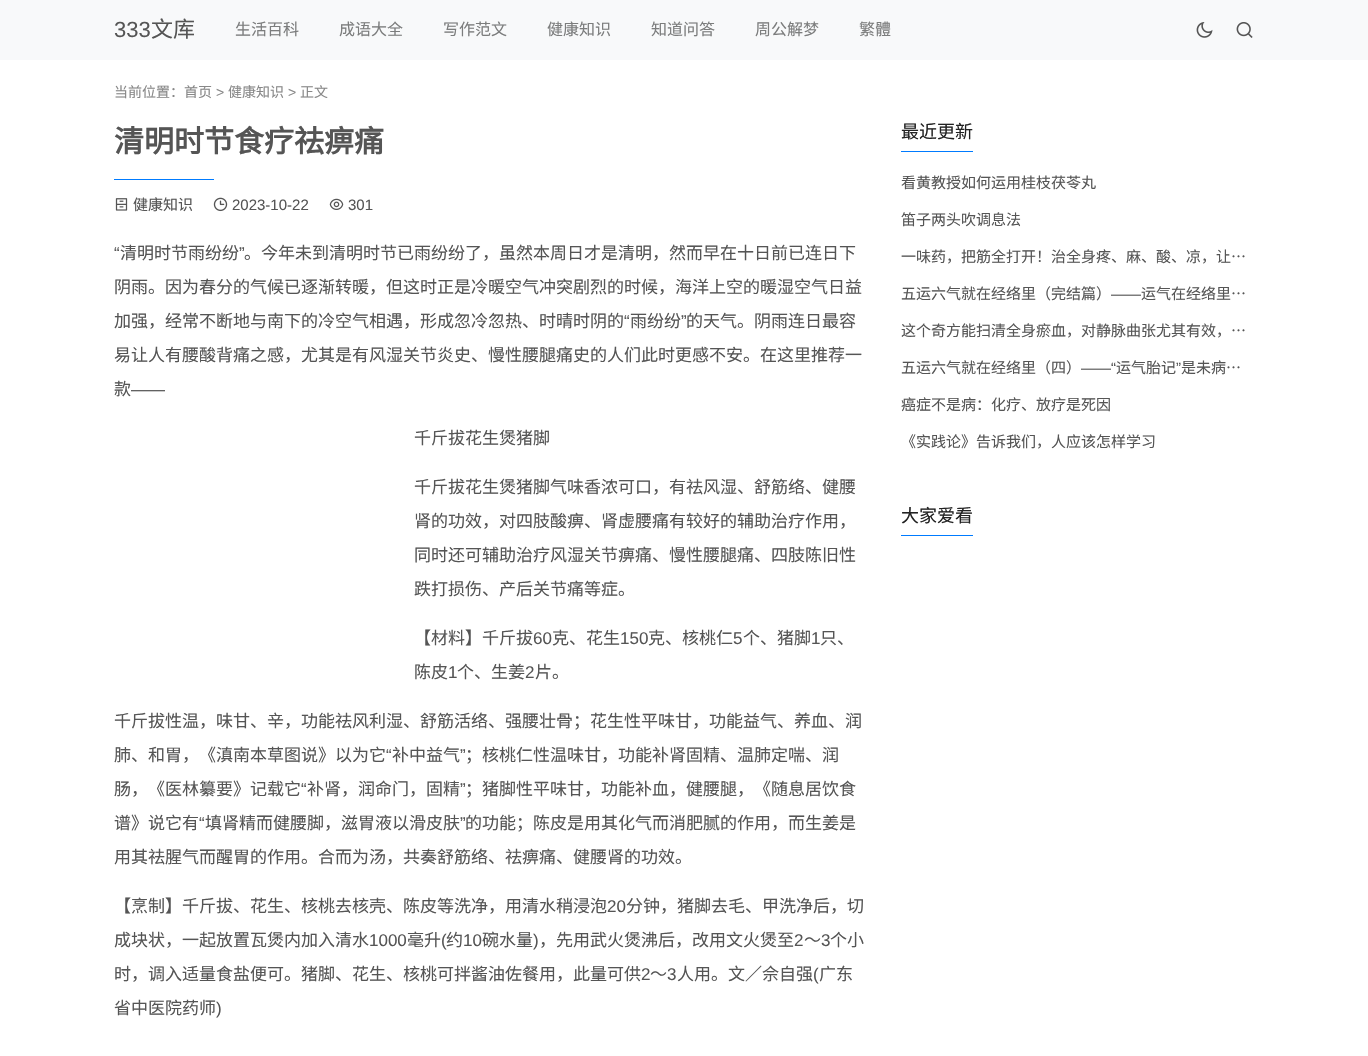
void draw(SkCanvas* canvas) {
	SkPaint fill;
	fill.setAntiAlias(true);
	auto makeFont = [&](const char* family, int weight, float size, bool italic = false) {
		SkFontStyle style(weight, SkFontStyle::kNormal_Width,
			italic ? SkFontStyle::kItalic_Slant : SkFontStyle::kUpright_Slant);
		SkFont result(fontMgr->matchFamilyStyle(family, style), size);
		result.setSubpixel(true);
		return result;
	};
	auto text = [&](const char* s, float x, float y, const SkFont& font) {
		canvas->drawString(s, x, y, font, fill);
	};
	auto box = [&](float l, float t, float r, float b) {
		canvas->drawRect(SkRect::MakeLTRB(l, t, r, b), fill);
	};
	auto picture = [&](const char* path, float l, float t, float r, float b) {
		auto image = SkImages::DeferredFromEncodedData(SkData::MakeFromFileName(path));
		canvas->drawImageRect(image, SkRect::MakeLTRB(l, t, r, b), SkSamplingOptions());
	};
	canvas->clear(0xFFFFFFFF);
	fill.setColor(0xFFF8F9FA);
	box(0, 0, 1368, 60);
	picture("image0.png", 1196, 22, 1213, 38);
	picture("image1.png", 1236, 22, 1253, 38);
	fill.setColor(0xFF007BFF);
	box(114, 179, 214, 180);
	picture("image2.png", 115, 198, 128, 211);
	picture("image3.png", 213, 197, 228, 212);
	picture("image4.png", 329, 198, 344, 210);
	box(901, 151, 973, 152);
	box(901, 535, 973, 536);
	auto font1 = makeFont("Liberation Sans", 400, 22);
	fill.setColor(0xFF555555);
	text("333", 114, 37, font1);
	auto font2 = makeFont("Noto Sans CJK SC", 400, 22);
	text("文库", 151, 37, font2);
	auto font3 = makeFont("Noto Sans CJK SC", 400, 16);
	fill.setColor(0xFF7C7D7D);
	text("生活百科", 235, 35, font3);
	text("成语大全", 339, 35, font3);
	text("写作范文", 443, 35, font3);
	text("健康知识", 547, 35, font3);
	text("知道问答", 651, 35, font3);
	text("周公解梦", 755, 35, font3);
	text("繁體", 859, 35, font3);
	auto font4 = makeFont("Noto Sans CJK SC", 400, 14);
	fill.setColor(0xFF888888);
	text("当前位置：首页", 114, 97, font4);
	auto font5 = makeFont("Liberation Sans", 400, 14);
	text(">", 216, 97, font5);
	text("健康知识", 228, 97, font4);
	text(">", 288, 97, font5);
	text("正文", 300, 97, font4);
	auto font6 = makeFont("Noto Sans CJK SC", 700, 30);
	fill.setColor(0xFF555555);
	text("清明时节食疗祛痹痛", 114, 152, font6);
	auto font7 = makeFont("Noto Sans CJK SC", 400, 15);
	text("健康知识", 133, 210, font7);
	auto font8 = makeFont("Liberation Sans", 400, 15);
	text("2023-10-22", 232, 210, font8);
	text("301", 348, 210, font8);
	auto font9 = makeFont("Liberation Sans", 400, 17);
	text("“", 114, 259, font9);
	auto font10 = makeFont("Noto Sans CJK SC", 400, 17);
	text("清明时节雨纷纷", 120, 259, font10);
	text("”", 239, 259, font9);
	text("。今年未到清明时节已雨纷纷了，虽然本周日才是清明，然而早在十日前已连日下", 244, 259, font10);
	text("阴雨。因为春分的气候已逐渐转暖，但这时正是冷暖空气冲突剧烈的时候，海洋上空的暖湿空气日益", 114, 293, font10);
	text("加强，经常不断地与南下的冷空气相遇，形成忽冷忽热、时晴时阴的", 114, 327, font10);
	text("“", 624, 327, font9);
	text("雨纷纷", 630, 327, font10);
	text("”", 681, 327, font9);
	text("的天气。阴雨连日最容", 686, 327, font10);
	text("易让人有腰酸背痛之感，尤其是有风湿关节炎史、慢性腰腿痛史的人们此时更感不安。在这里推荐一", 114, 361, font10);
	text("款", 114, 395, font10);
	text("――", 131, 395, font9);
	text("千斤拔花生煲猪脚", 414, 444, font10);
	text("千斤拔花生煲猪脚气味香浓可口，有祛风湿、舒筋络、健腰", 414, 493, font10);
	text("肾的功效，对四肢酸痹、肾虚腰痛有较好的辅助治疗作用，", 414, 527, font10);
	text("同时还可辅助治疗风湿关节痹痛、慢性腰腿痛、四肢陈旧性", 414, 561, font10);
	text("跌打损伤、产后关节痛等症。", 414, 595, font10);
	text("【材料】千斤拔", 414, 644, font10);
	text("60", 533, 644, font9);
	text("克、花生", 552, 644, font10);
	text("150", 620, 644, font9);
	text("克、核桃仁", 648, 644, font10);
	text("5", 733, 644, font9);
	text("个、猪脚", 743, 644, font10);
	text("1", 811, 644, font9);
	text("只、", 820, 644, font10);
	text("陈皮", 414, 678, font10);
	text("1", 448, 678, font9);
	text("个、生姜", 457, 678, font10);
	text("2", 525, 678, font9);
	text("片。", 535, 678, font10);
	text("千斤拔性温，味甘、辛，功能祛风利湿、舒筋活络、强腰壮骨；花生性平味甘，功能益气、养血、润", 114, 727, font10);
	text("肺、和胃，《滇南本草图说》以为它", 114, 761, font10);
	text("“", 386, 761, font9);
	text("补中益气", 392, 761, font10);
	text("”", 460, 761, font9);
	text("；核桃仁性温味甘，功能补肾固精、温肺定喘、润", 465, 761, font10);
	text("肠，《医林纂要》记载它", 114, 795, font10);
	text("“", 301, 795, font9);
	text("补肾，润命门，固精", 307, 795, font10);
	text("”", 460, 795, font9);
	text("；猪脚性平味甘，功能补血，健腰腿，《随息居饮食", 465, 795, font10);
	text("谱》说它有", 114, 829, font10);
	text("“", 199, 829, font9);
	text("填肾精而健腰脚，滋胃液以滑皮肤", 205, 829, font10);
	text("”", 460, 829, font9);
	text("的功能；陈皮是用其化气而消肥腻的作用，而生姜是", 465, 829, font10);
	text("用其祛腥气而醒胃的作用。合而为汤，共奏舒筋络、祛痹痛、健腰肾的功效。", 114, 863, font10);
	text("【烹制】千斤拔、花生、核桃去核壳、陈皮等洗净，用清水稍浸泡", 114, 912, font10);
	text("20", 607, 912, font9);
	text("分钟，猪脚去毛、甲洗净后，切", 626, 912, font10);
	text("成块状，一起放置瓦煲内加入清水", 114, 946, font10);
	text("1000", 369, 946, font9);
	text("毫升", 407, 946, font10);
	text("(", 441, 946, font9);
	text("约", 446, 946, font10);
	text("10", 463, 946, font9);
	text("碗水量", 482, 946, font10);
	text(")", 533, 946, font9);
	text("，先用武火煲沸后，改用文火煲至", 539, 946, font10);
	text("2", 794, 946, font9);
	text("～", 804, 946, font10);
	text("3", 821, 946, font9);
	text("个小", 830, 946, font10);
	text("时，调入适量食盐便可。猪脚、花生、核桃可拌酱油佐餐用，此量可供", 114, 980, font10);
	text("2", 641, 980, font9);
	text("～", 650, 980, font10);
	text("3", 667, 980, font9);
	text("人用。文／佘自强", 677, 980, font10);
	text("(", 813, 980, font9);
	text("广东", 819, 980, font10);
	text("省中医院药师", 114, 1014, font10);
	text(")", 216, 1014, font9);
	auto font11 = makeFont("Noto Sans CJK SC", 400, 18);
	fill.setColor(0xFF222222);
	text("最近更新", 901, 138, font11);
	fill.setColor(0xFF555555);
	text("看黄教授如何运用桂枝茯苓丸", 901, 188, font7);
	text("笛子两头吹调息法", 901, 225, font7);
	text("一味药，把筋全打开！治全身疼、麻、酸、凉，让…", 901, 262, font7);
	text("五运六气就在经络里（完结篇）", 901, 299, font7);
	text("——", 1111, 299, font8);
	text("运气在经络里…", 1141, 299, font7);
	text("这个奇方能扫清全身瘀血，对静脉曲张尤其有效，…", 901, 336, font7);
	text("五运六气就在经络里（四）", 901, 373, font7);
	text("——“", 1081, 373, font8);
	text("运气胎记", 1116, 373, font7);
	text("”", 1176, 373, font8);
	text("是未病…", 1181, 373, font7);
	text("癌症不是病：化疗、放疗是死因", 901, 410, font7);
	text("《实践论》告诉我们，人应该怎样学习", 901, 447, font7);
	fill.setColor(0xFF222222);
	text("大家爱看", 901, 522, font11);
}
